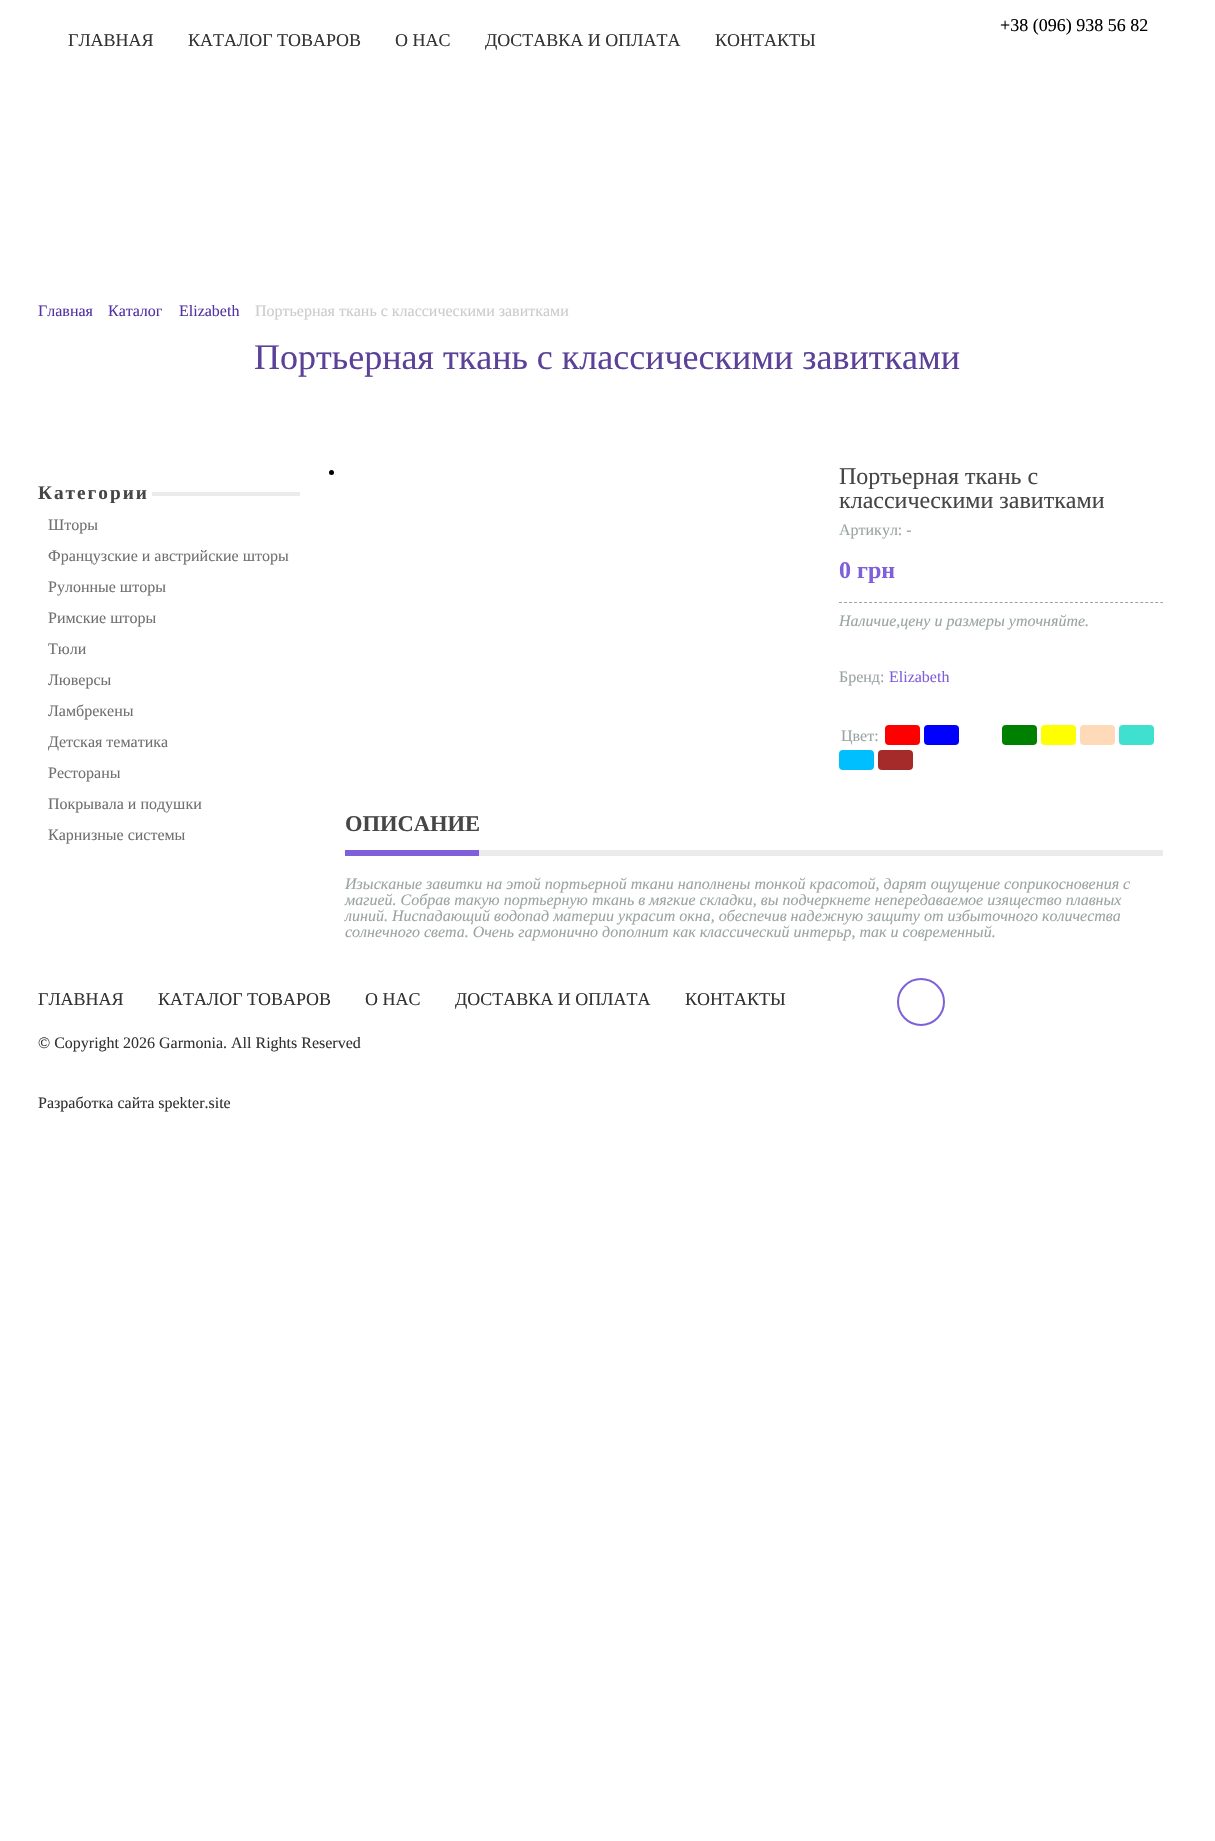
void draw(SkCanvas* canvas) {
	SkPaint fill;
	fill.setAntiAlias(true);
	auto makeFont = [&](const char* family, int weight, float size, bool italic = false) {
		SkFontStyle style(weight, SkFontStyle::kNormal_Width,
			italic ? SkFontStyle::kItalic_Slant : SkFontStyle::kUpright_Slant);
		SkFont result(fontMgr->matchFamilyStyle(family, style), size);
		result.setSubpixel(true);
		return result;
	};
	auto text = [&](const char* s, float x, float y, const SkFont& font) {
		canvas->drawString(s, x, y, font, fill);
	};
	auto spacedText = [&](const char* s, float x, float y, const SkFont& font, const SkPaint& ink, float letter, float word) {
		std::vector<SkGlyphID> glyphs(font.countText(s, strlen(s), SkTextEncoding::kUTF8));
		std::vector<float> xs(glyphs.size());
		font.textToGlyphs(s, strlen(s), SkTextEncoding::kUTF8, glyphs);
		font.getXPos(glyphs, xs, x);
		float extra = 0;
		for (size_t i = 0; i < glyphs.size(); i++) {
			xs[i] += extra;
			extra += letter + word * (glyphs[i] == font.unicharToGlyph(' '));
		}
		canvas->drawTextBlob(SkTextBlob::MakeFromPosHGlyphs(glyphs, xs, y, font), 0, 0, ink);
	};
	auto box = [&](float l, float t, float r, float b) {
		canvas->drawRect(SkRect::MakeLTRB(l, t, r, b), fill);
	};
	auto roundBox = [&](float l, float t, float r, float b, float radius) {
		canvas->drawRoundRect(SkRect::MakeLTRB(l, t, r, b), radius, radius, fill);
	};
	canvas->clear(0xFFFFFFFF);
	fill.setColor(0xFFEBEBEB);
	box(152, 492, 300, 496);
	fill.setColor(0xFF000000);
	canvas->drawCircle(331.5f, 472.5f, 2.5f, fill);
	fill.setStyle(SkPaint::kStroke_Style);
	fill.setStrokeWidth(1);
	fill.setColor(0xFF9AA4A3);
	fill.setPathEffect(SkDashPathEffect::Make({{3, 2.02f}}, 0));
	canvas->drawPath(SkPathBuilder().moveTo(839, 602.5f).lineTo(1163, 602.5f).detach(), fill);
	fill.setPathEffect(nullptr);
	fill.setStyle(SkPaint::kFill_Style);
	fill.setColor(0xFFFF0000);
	roundBox(885, 725, 920, 745, 4);
	fill.setColor(0xFF0000FF);
	roundBox(924, 725, 959, 745, 4);
	fill.setColor(0xFF008000);
	roundBox(1002, 725, 1037, 745, 4);
	fill.setColor(0xFFFFFF00);
	roundBox(1041, 725, 1076, 745, 4);
	fill.setColor(0xFFFFDAB9);
	roundBox(1080, 725, 1115, 745, 4);
	fill.setColor(0xFF40E0D0);
	roundBox(1119, 725, 1154, 745, 4);
	fill.setColor(0xFF00BFFF);
	roundBox(839, 750, 874, 770, 4);
	fill.setColor(0xFFA52A2A);
	roundBox(878, 750, 913, 770, 4);
	fill.setColor(0xFFEBEBEB);
	box(479, 850, 1163, 856);
	fill.setColor(0xFF7F5FDA);
	box(345, 850, 479, 856);
	fill.setStyle(SkPaint::kStroke_Style);
	fill.setStrokeWidth(2);
	canvas->drawCircle(921, 1002, 23, fill);
	auto font1 = makeFont("Liberation Serif", 400, 18);
	fill.setStyle(SkPaint::kFill_Style);
	fill.setColor(0xFF000000);
	text("+38 (096) 938 56 82", 1000, 31, font1);
	fill.setColor(0xFF333333);
	text("ГЛАВНАЯ", 68, 46, font1);
	text("КАТАЛОГ ТОВАРОВ", 188, 46, font1);
	text("О НАС", 395, 46, font1);
	text("ДОСТАВКА И ОПЛАТА", 485, 46, font1);
	text("КОНТАКТЫ", 715, 46, font1);
	auto font2 = makeFont("Liberation Serif", 400, 16);
	fill.setColor(0xFF5432A2);
	text("Главная", 38, 316, font2);
	text("Каталог", 108, 316, font2);
	text("Elizabeth", 179, 316, font2);
	fill.setColor(0xFFCCCCCC);
	text("Портьерная ткань с классическими завитками", 255, 316, font2);
	auto font3 = makeFont("Liberation Serif", 400, 36);
	fill.setColor(0xFF5B4198);
	text("Портьерная ткань с классическими завитками", 254, 369, font3);
	auto font4 = makeFont("Liberation Serif", 700, 19.25f);
	fill.setColor(0xFF464646);
	spacedText("Категории", 38, 499, font4, fill, 2, 0);
	fill.setColor(0xFF707070);
	text("Шторы", 48, 530, font2);
	text("Французские и австрийские шторы", 48, 561, font2);
	text("Рулонные шторы", 48, 592, font2);
	text("Римские шторы", 48, 623, font2);
	text("Тюли", 48, 654, font2);
	text("Люверсы", 48, 685, font2);
	text("Ламбрекены", 48, 716, font2);
	text("Детская тематика", 48, 747, font2);
	text("Рестораны", 48, 778, font2);
	text("Покрывала и подушки", 48, 809, font2);
	text("Карнизные системы", 48, 840, font2);
	auto font5 = makeFont("Liberation Serif", 400, 24);
	fill.setColor(0xFF464646);
	text("Портьерная ткань с", 839, 484, font5);
	text("классическими завитками", 839, 508, font5);
	fill.setColor(0xFF9AA4A3);
	text("Артикул: -", 839, 535, font2);
	auto font6 = makeFont("Liberation Serif", 700, 24);
	fill.setColor(0xFF7F5FDA);
	text("0 грн", 839, 578, font6);
	auto font7 = makeFont("Liberation Serif", 400, 16, true);
	fill.setColor(0xFF9AA4A3);
	text("Наличие,цену и размеры уточняйте.", 839, 626, font7);
	text("Бренд:", 839, 682, font2);
	fill.setColor(0xFF7F5FDA);
	text("Elizabeth", 889, 682, font2);
	fill.setColor(0xFF9AA4A3);
	text("Цвет:", 841, 741, font2);
	auto font8 = makeFont("Liberation Serif", 700, 22.5f);
	fill.setColor(0xFF464646);
	text("ОПИСАНИЕ", 345, 831, font8);
	fill.setColor(0xFF9AA4A3);
	text("Изысканые завитки на этой портьерной ткани наполнены тонкой красотой, дарят ощущение соприкосновения с", 345, 889, font7);
	text("магией. Собрав такую портьерную ткань в мягкие складки, вы подчеркнете непередаваемое изящество плавных", 345, 905, font7);
	text("линий. Ниспадающий водопад материи украсит окна, обеспечив надежную защиту от избыточного количества", 345, 921, font7);
	text("солнечного света. Очень гармонично дополнит как классический интерьр, так и современный.", 345, 937, font7);
	fill.setColor(0xFF333333);
	text("ГЛАВНАЯ", 38, 1005, font1);
	text("КАТАЛОГ ТОВАРОВ", 158, 1005, font1);
	text("О НАС", 365, 1005, font1);
	text("ДОСТАВКА И ОПЛАТА", 455, 1005, font1);
	text("КОНТАКТЫ", 685, 1005, font1);
	text("© Copyright 2026 Garmonia. All Rights Reserved", 38, 1048, font2);
	text("Разработка сайта spekter.site", 38, 1108, font2);
}
